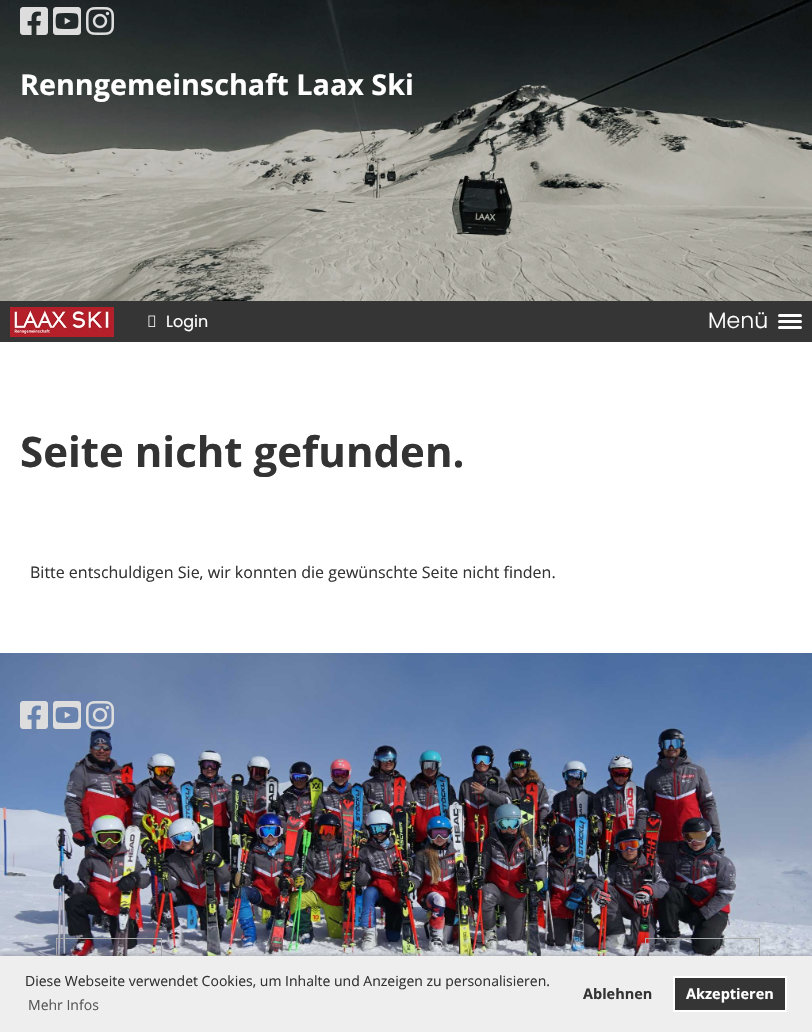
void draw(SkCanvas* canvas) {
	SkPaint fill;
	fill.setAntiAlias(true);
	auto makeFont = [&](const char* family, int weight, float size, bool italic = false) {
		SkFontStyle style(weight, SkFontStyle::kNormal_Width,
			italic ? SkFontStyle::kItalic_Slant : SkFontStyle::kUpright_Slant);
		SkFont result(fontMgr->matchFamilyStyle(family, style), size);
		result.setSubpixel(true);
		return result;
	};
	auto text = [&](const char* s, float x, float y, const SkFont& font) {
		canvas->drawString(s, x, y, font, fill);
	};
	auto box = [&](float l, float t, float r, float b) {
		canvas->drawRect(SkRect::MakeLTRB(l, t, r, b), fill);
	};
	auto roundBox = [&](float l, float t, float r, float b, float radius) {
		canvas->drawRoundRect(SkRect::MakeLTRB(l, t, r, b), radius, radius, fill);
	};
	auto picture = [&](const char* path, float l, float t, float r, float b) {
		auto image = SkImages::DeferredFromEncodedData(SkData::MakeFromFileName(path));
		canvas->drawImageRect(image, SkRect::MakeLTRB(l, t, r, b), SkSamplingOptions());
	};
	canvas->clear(0xFFFFFFFF);
	picture("image0.png", 0, 0, 812, 301);
	picture("image1.png", 20, 7, 48, 35);
	picture("image2.png", 53, 7, 81, 35);
	picture("image3.png", 86, 7, 114, 35);
	fill.setColor(0xFF353535);
	box(0, 301, 812, 342);
	picture("image4.png", 10, 307, 114, 337);
	picture("image5.png", 148, 315, 156, 327);
	fill.setColor(0xFFFFFFFF);
	roundBox(778, 314, 802, 317, 1.5f);
	roundBox(778, 320, 802, 323, 1.5f);
	roundBox(778, 326, 802, 329, 1.5f);
	picture("image6.png", 0, 653, 812, 956);
	picture("image7.png", 20, 701, 48, 729);
	picture("image8.png", 53, 701, 81, 729);
	picture("image9.png", 86, 701, 114, 729);
	fill.setStyle(SkPaint::kStroke_Style);
	fill.setStrokeWidth(1);
	fill.setColor(0xFFAAAAAA);
	canvas->drawRect(SkRect::MakeLTRB(56.5f, 938.5f, 161.5f, 971.5f), fill);
	canvas->drawRect(SkRect::MakeLTRB(645.5f, 938.5f, 759.5f, 971.5f), fill);
	fill.setStyle(SkPaint::kFill_Style);
	fill.setColor(0x4D000000);
	fill.setMaskFilter(SkMaskFilter::MakeBlur(kNormal_SkBlurStyle, 2.5f));
	canvas->drawRect(SkRect::MakeLTRB(0, 956, 812, 1032), fill);
	fill.setMaskFilter(nullptr);
	fill.setColor(0xFFEEEEEE);
	box(0, 956, 812, 1032);
	fill.setColor(0xFF353535);
	canvas->drawRect(SkRect::MakeLTRB(674, 977, 786, 1011), fill);
	fill.setStyle(SkPaint::kStroke_Style);
	fill.setStrokeWidth(2);
	fill.setColor(0xFFFFFFFF);
	canvas->drawRect(SkRect::MakeLTRB(674, 977, 786, 1011), fill);
	auto font1 = makeFont("Open Sans", 700, 28.75f);
	fill.setStyle(SkPaint::kFill_Style);
	text("Renngemeinschaft Laax Ski", 20, 95, font1);
	auto font2 = makeFont("Poppins", 400, 16);
	text("Login", 166, 327, font2);
	auto font3 = makeFont("Poppins", 300, 22);
	text("Menü", 708, 328, font3);
	auto font4 = makeFont("Open Sans", 700, 42);
	fill.setColor(0xFF333333);
	text("Seite nicht gefunden.", 20, 467, font4);
	auto font5 = makeFont("Open Sans", 400, 16);
	text("Bitte entschuldigen Sie, wir konnten die gewünschte Seite nicht finden.", 30, 578, font5);
	auto font6 = makeFont("Open Sans", 400, 14);
	text("Diese Webseite verwendet Cookies, um Inhalte und Anzeigen zu personalisieren.", 25, 986, font6);
	fill.setColor(0xFF585858);
	text("Mehr Infos", 28, 1010, font6);
	auto font7 = makeFont("Open Sans", 700, 14.5f);
	fill.setColor(0xFF333333);
	text("Ablehnen", 583, 999, font7);
	fill.setColor(0xFFFFFFFF);
	text("Akzeptieren", 686, 999, font7);
}
